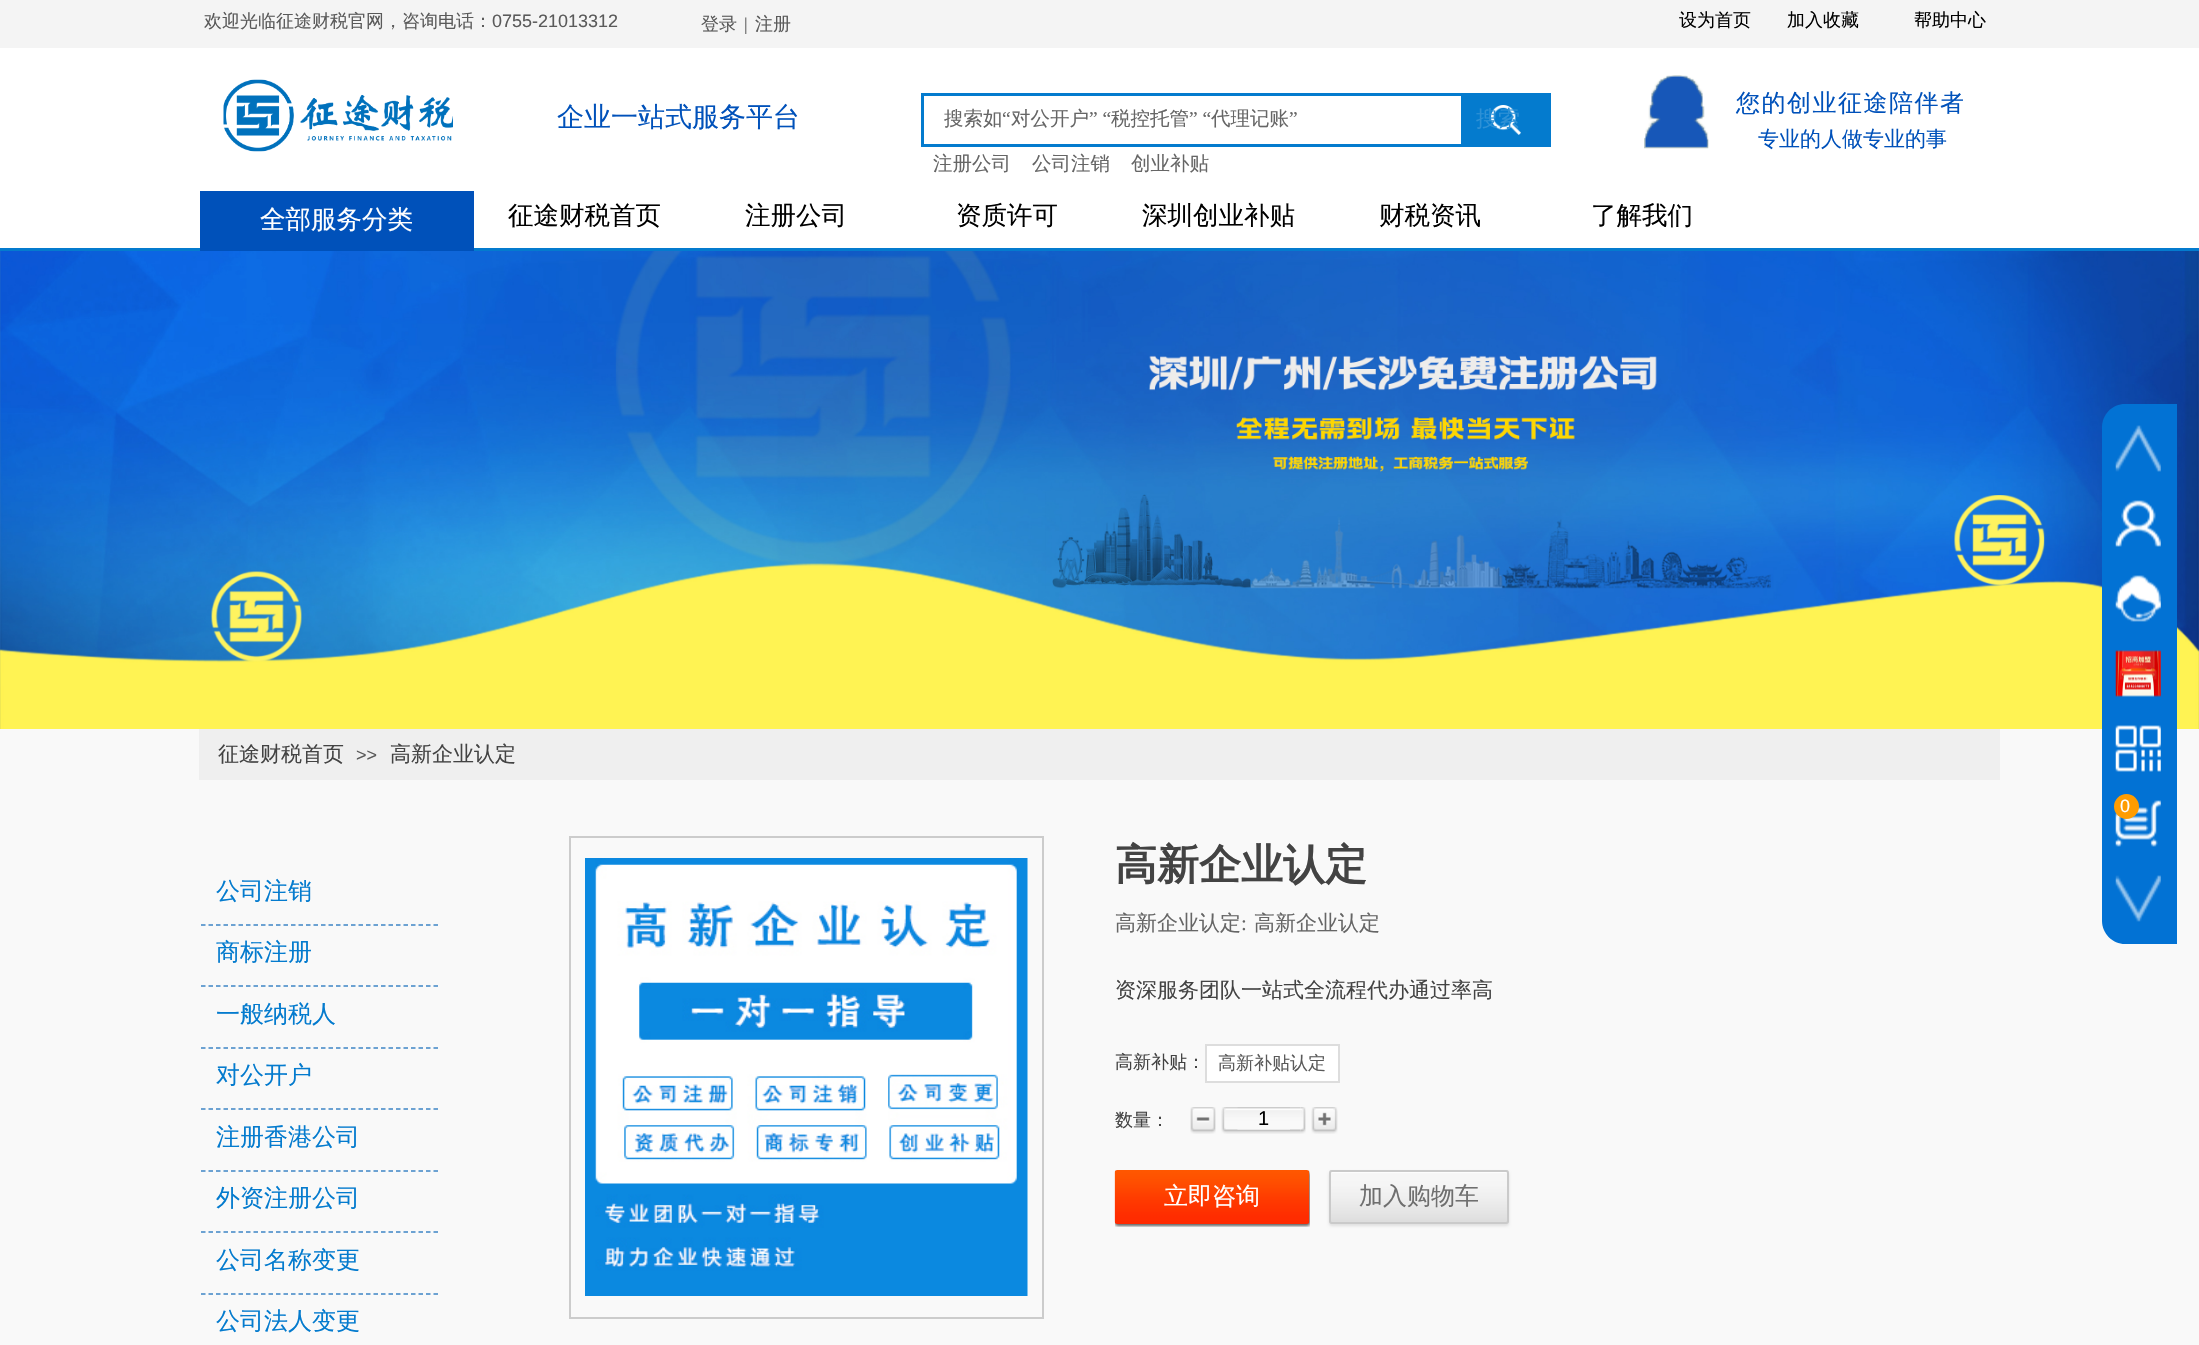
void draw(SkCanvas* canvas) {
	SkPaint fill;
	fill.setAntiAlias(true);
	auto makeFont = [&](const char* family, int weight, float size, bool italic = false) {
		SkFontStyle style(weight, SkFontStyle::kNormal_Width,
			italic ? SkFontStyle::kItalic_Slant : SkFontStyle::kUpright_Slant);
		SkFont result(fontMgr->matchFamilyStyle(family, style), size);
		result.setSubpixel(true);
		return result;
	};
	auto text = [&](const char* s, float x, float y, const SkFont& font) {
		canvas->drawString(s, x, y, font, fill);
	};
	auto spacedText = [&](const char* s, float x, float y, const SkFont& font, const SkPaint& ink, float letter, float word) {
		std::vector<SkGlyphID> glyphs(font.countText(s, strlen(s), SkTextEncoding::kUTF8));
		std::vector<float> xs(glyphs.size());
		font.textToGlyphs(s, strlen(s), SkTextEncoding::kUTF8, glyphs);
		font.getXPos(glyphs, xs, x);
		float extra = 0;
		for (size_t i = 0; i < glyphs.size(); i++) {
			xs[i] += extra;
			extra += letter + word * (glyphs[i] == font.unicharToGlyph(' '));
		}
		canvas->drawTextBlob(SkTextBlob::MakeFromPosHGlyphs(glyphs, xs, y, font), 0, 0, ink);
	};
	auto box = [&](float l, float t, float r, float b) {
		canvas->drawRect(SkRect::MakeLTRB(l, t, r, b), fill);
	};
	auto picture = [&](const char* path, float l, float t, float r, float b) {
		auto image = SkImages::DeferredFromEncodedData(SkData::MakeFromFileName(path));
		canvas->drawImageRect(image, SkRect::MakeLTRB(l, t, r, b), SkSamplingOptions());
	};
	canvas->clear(0xFFF9F9F9);
	fill.setColor(0xFFF4F4F4);
	box(0, 0, 2199, 48);
	fill.setColor(0xFFFFFFFF);
	box(0, 48, 2199, 248);
	picture("image0.png", 223, 79, 453, 152);
	fill.setStyle(SkPaint::kStroke_Style);
	fill.setStrokeWidth(3);
	fill.setColor(0xFF047BCE);
	canvas->drawRect(SkRect::MakeLTRB(922.5f, 94.5f, 1549.5f, 145.5f), fill);
	fill.setStyle(SkPaint::kFill_Style);
	box(1461, 96, 1548, 144);
	picture("image1.png", 1491, 105, 1521, 135);
	picture("image2.png", 1644, 75, 1709, 149);
	box(0, 248, 2199, 251);
	fill.setColor(0xFF0051BA);
	box(200, 191, 474, 251);
	picture("image3.png", 0, 251, 2199, 729);
	fill.setColor(0xFFEFEFEF);
	box(199, 729, 2000, 780);
	fill.setStyle(SkPaint::kStroke_Style);
	fill.setStrokeWidth(1.5f);
	fill.setColor(0xFF3D85C6);
	fill.setPathEffect(SkDashPathEffect::Make({{4.5f, 3}}, 0));
	canvas->drawPath(SkPathBuilder().moveTo(201, 925).lineTo(438, 925).detach(), fill);
	fill.setPathEffect(nullptr);
	fill.setPathEffect(SkDashPathEffect::Make({{4.5f, 3}}, 0));
	canvas->drawPath(SkPathBuilder().moveTo(201, 986).lineTo(438, 986).detach(), fill);
	fill.setPathEffect(nullptr);
	fill.setPathEffect(SkDashPathEffect::Make({{4.5f, 3}}, 0));
	canvas->drawPath(SkPathBuilder().moveTo(201, 1048).lineTo(438, 1048).detach(), fill);
	fill.setPathEffect(nullptr);
	fill.setPathEffect(SkDashPathEffect::Make({{4.5f, 3}}, 0));
	canvas->drawPath(SkPathBuilder().moveTo(201, 1109).lineTo(438, 1109).detach(), fill);
	fill.setPathEffect(nullptr);
	fill.setPathEffect(SkDashPathEffect::Make({{4.5f, 3}}, 0));
	canvas->drawPath(SkPathBuilder().moveTo(201, 1171).lineTo(438, 1171).detach(), fill);
	fill.setPathEffect(nullptr);
	fill.setPathEffect(SkDashPathEffect::Make({{4.5f, 3}}, 0));
	canvas->drawPath(SkPathBuilder().moveTo(201, 1232).lineTo(438, 1232).detach(), fill);
	fill.setPathEffect(nullptr);
	fill.setPathEffect(SkDashPathEffect::Make({{4.5f, 3}}, 0));
	canvas->drawPath(SkPathBuilder().moveTo(201, 1294).lineTo(438, 1294).detach(), fill);
	fill.setPathEffect(nullptr);
	fill.setStrokeWidth(2);
	fill.setColor(0xFFCCCCCC);
	canvas->drawRect(SkRect::MakeLTRB(570, 837, 1043, 1318), fill);
	picture("image4.png", 585, 858, 1028, 1296);
	fill.setStyle(SkPaint::kFill_Style);
	fill.setColor(0xFFFFFFFF);
	canvas->drawRect(SkRect::MakeLTRB(1206, 1045, 1339, 1082), fill);
	fill.setStyle(SkPaint::kStroke_Style);
	fill.setColor(0xFFDDDDDD);
	canvas->drawRect(SkRect::MakeLTRB(1206, 1045, 1339, 1082), fill);
	picture("image5.png", 1190, 1107, 1216, 1134);
	picture("image6.png", 1221, 1107, 1227, 1134);
	picture("image7.png", 1227, 1107, 1301, 1134);
	picture("image8.png", 1237, 1107, 1290, 1130);
	picture("image9.png", 1300, 1107, 1306, 1134);
	picture("image10.png", 1311, 1107, 1338, 1134);
	canvas->save();
	canvas->clipRect(SkRect::MakeLTRB(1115, 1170, 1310, 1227));
	fill.setStyle(SkPaint::kFill_Style);
	fill.setColor(0x99000000);
	fill.setMaskFilter(SkMaskFilter::MakeBlur(kNormal_SkBlurStyle, 1.5f));
	canvas->drawRoundRect(SkRect::MakeLTRB(1115, 1172, 1310, 1226), 3, 3, fill);
	fill.setMaskFilter(nullptr);
	canvas->restore();
	picture("image11.png", 1114, 1170, 1310, 1224);
	fill.setColor(0x1A000000);
	fill.setMaskFilter(SkMaskFilter::MakeBlur(kNormal_SkBlurStyle, 1.5f));
	canvas->drawRoundRect(SkRect::MakeLTRB(1329, 1172, 1509, 1226), 3, 3, fill);
	fill.setMaskFilter(nullptr);
	picture("image12.png", 1329, 1170, 1509, 1224);
	fill.setStyle(SkPaint::kStroke_Style);
	fill.setColor(0xFFCACACA);
	canvas->drawRoundRect(SkRect::MakeLTRB(1330, 1171, 1508, 1223), 2, 2, fill);
	fill.setStyle(SkPaint::kFill_Style);
	fill.setColor(0xFF0272D4);
	canvas->drawPath(SkPathBuilder().moveTo(2125, 404).lineTo(2177, 404).lineTo(2177, 944).lineTo(2125, 944).cubicTo(2112.5f, 944, 2102, 933.5f, 2102, 921).lineTo(2102, 427).cubicTo(2102, 414.5f, 2112.5f, 404, 2125, 404).close().detach(), fill);
	picture("image13.png", 2115, 425, 2161, 472);
	picture("image14.png", 2115, 500, 2161, 547);
	picture("image15.png", 2115, 575, 2161, 622);
	picture("image16.png", 2115, 650, 2161, 697);
	picture("image17.png", 2115, 725, 2161, 772);
	picture("image18.png", 2115, 800, 2161, 847);
	fill.setColor(0xFFFF9C00);
	canvas->drawCircle(2126.5f, 806.5f, 12.5f, fill);
	picture("image19.png", 2115, 875, 2161, 922);
	auto font1 = makeFont("WenQuanYi Zen Hei", 500, 18);
	fill.setColor(0xFF5A5A5A);
	text("欢迎光临征途财税官网，咨询电话：", 204, 27, font1);
	auto font2 = makeFont("Liberation Sans", 400, 18);
	text("0755-21013312", 492, 27, font2);
	text("登录", 701, 30, font1);
	auto font3 = makeFont("Liberation Serif", 400, 18);
	text("|", 744, 30, font3);
	text("注册", 755, 30, font1);
	fill.setColor(0xFF000000);
	text("设为首页", 1679, 26, font1);
	text("加入收藏", 1787, 26, font1);
	text("帮助中心", 1914, 26, font1);
	auto font4 = makeFont("WenQuanYi Zen Hei", 500, 27);
	fill.setColor(0xFF0051BA);
	text("企业一站式服务平台", 557, 126, font4);
	auto font5 = makeFont("WenQuanYi Zen Hei", 500, 19.5f);
	fill.setColor(0xFF666666);
	text("搜索如", 944, 125, font5);
	auto font6 = makeFont("Liberation Serif", 400, 19.5f);
	text("“", 1002, 125, font6);
	text("对公开户", 1011, 125, font5);
	text("” “", 1089, 125, font6);
	text("税控托管", 1111, 125, font5);
	text("” “", 1189, 125, font6);
	text("代理记账", 1211, 125, font5);
	text("”", 1289, 125, font6);
	auto font7 = makeFont("WenQuanYi Zen Hei", 500, 22);
	fill.setColor(0xFF2E91D6);
	text("搜索", 1476, 126, font7);
	fill.setColor(0xFF666666);
	text("注册公司", 933, 170, font5);
	text("公司注销", 1032, 170, font5);
	text("创业补贴", 1131, 170, font5);
	auto font8 = makeFont("WenQuanYi Zen Hei", 500, 24);
	fill.setColor(0xFF0051BA);
	spacedText("您的创业征途陪伴者", 1736, 111, font8, fill, 1.5f, 0);
	auto font9 = makeFont("WenQuanYi Zen Hei", 500, 21);
	text("专业的人做专业的事", 1758, 146, font9);
	auto font10 = makeFont("WenQuanYi Zen Hei", 500, 25.5f);
	fill.setColor(0xFFFFFFFF);
	text("全部服务分类", 260, 228, font10);
	fill.setColor(0xFF000000);
	text("征途财税首页", 508, 224, font10);
	text("注册公司", 745, 224, font10);
	text("资质许可", 956, 224, font10);
	text("深圳创业补贴", 1142, 224, font10);
	text("财税资讯", 1379, 224, font10);
	text("了解我们", 1591, 224, font10);
	fill.setColor(0xFF434343);
	text("征途财税首页", 218, 761, font9);
	fill.setColor(0xFF5A5A5A);
	text(">>", 356, 761, font2);
	fill.setColor(0xFF434343);
	text("高新企业认定", 390, 761, font9);
	fill.setColor(0xFF047BCE);
	text("公司注销", 216, 899, font8);
	text("商标注册", 216, 960, font8);
	text("一般纳税人", 216, 1022, font8);
	text("对公开户", 216, 1083, font8);
	text("注册香港公司", 216, 1145, font8);
	text("外资注册公司", 216, 1206, font8);
	text("公司名称变更", 216, 1268, font8);
	text("公司法人变更", 216, 1329, font8);
	auto font11 = makeFont("WenQuanYi Zen Hei", 700, 42);
	fill.setColor(0xFF434343);
	text("高新企业认定", 1115, 879, font11);
	fill.setColor(0xFF666666);
	text("高新企业认定", 1115, 930, font9);
	auto font12 = makeFont("Liberation Serif", 400, 21);
	text(":", 1241, 930, font12);
	text("高新企业认定", 1254, 930, font9);
	fill.setColor(0xFF434343);
	text("资深服务团队一站式全流程代办通过率高", 1115, 997, font9);
	text("高新补贴：", 1115, 1068, font1);
	fill.setColor(0xFF5A5A5A);
	text("高新补贴认定", 1218, 1069, font1);
	fill.setColor(0xFF434343);
	text("数量：", 1115, 1126, font1);
	auto font13 = makeFont("Liberation Sans", 400, 20);
	fill.setColor(0xFF000000);
	text("1", 1258, 1125, font13);
	fill.setColor(0xFFFFFFFF);
	text("立即咨询", 1164, 1204, font8);
	fill.setColor(0xFF6F6F6F);
	text("加入购物车", 1359, 1204, font8);
	fill.setColor(0xFFFFFFFF);
	text("0", 2120, 812, font2);
}
